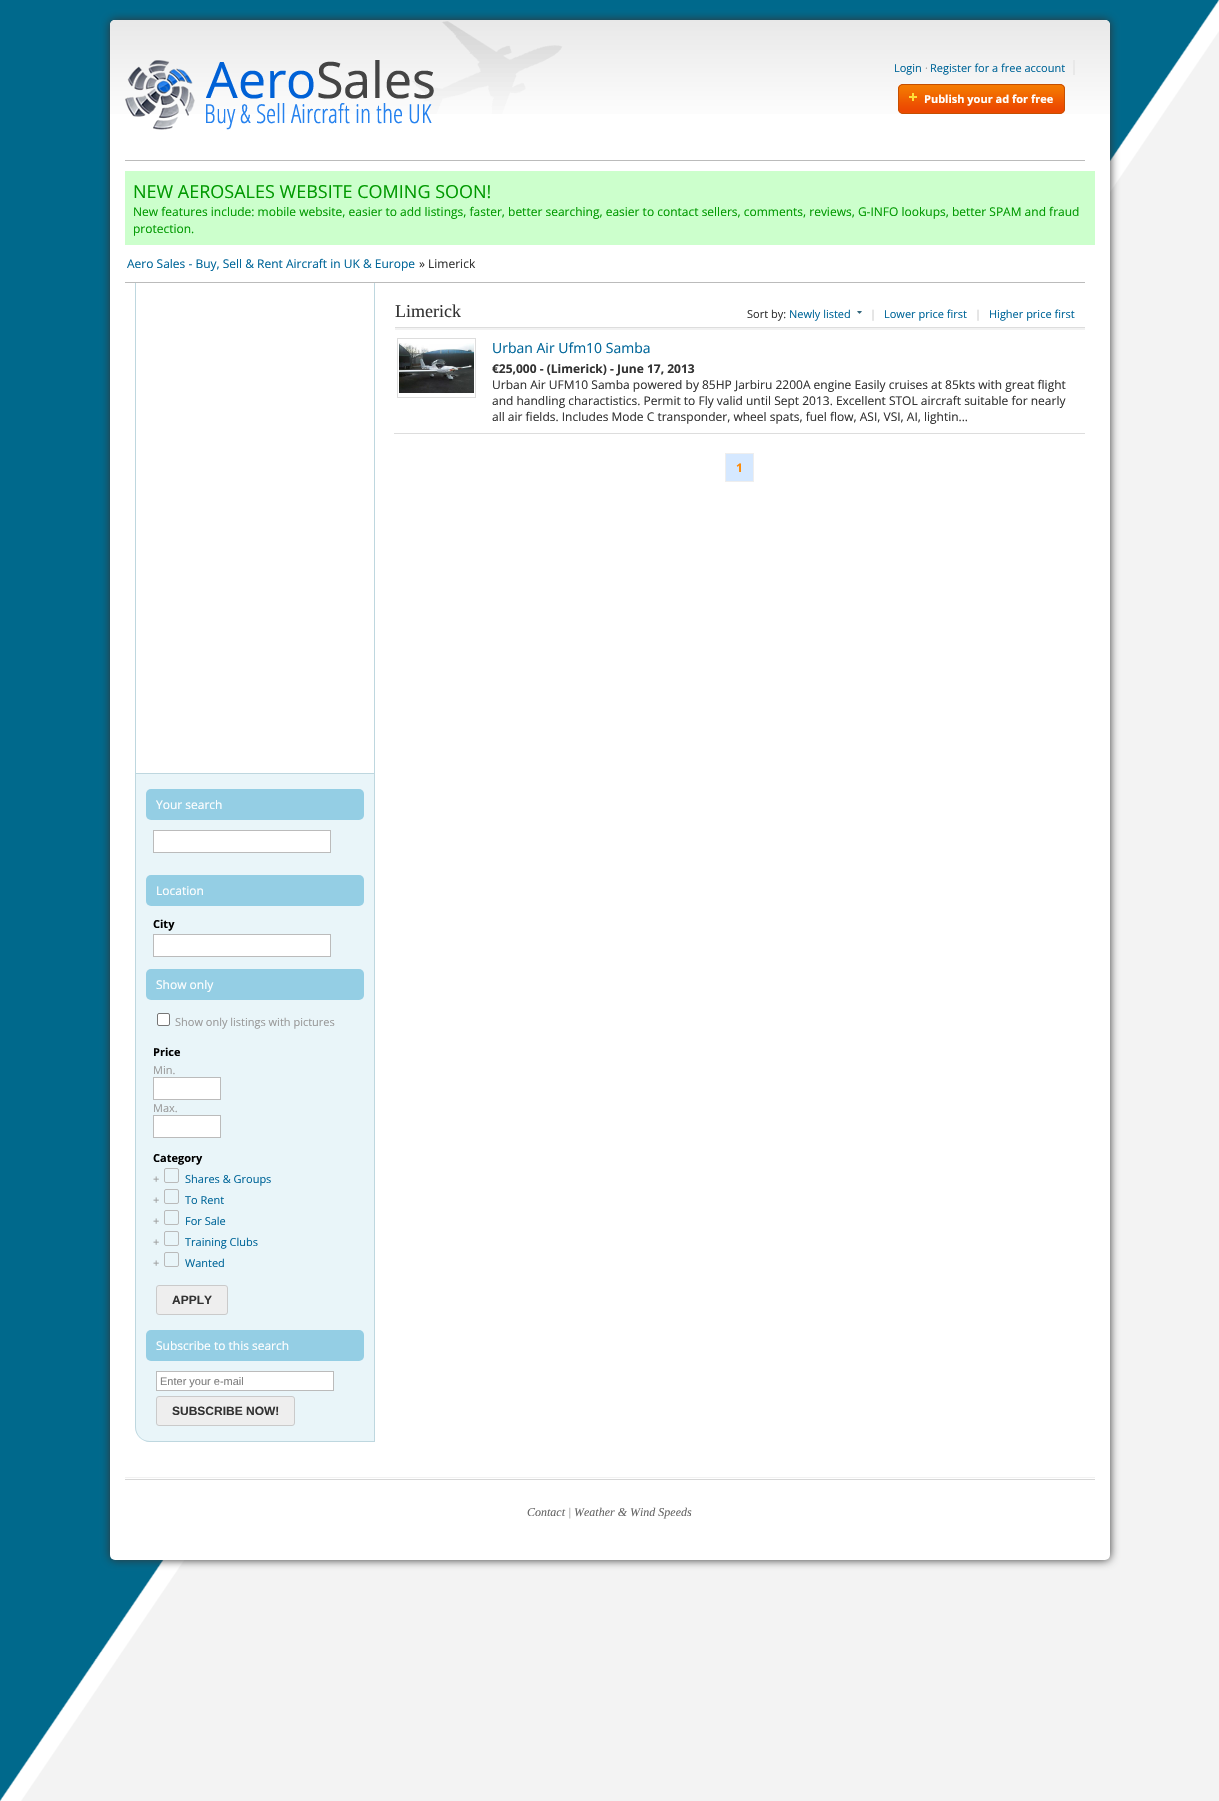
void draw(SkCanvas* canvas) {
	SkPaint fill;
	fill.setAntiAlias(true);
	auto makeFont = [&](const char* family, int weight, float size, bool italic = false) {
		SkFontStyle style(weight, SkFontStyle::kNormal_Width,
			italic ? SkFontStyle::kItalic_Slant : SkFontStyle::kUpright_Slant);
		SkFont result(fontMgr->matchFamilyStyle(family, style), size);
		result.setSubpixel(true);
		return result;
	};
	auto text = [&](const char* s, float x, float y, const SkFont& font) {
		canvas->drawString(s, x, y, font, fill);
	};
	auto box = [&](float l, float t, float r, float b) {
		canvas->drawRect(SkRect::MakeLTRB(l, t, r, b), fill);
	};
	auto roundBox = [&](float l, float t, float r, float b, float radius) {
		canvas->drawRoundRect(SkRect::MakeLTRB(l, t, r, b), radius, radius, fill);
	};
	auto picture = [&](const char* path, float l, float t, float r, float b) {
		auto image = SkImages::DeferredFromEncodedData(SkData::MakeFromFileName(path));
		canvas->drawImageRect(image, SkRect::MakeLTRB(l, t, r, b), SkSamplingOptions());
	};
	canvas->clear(0xFFF3F3F3);
	picture("image0.png", 0, 0, 1219, 1801);
	fill.setColor(0xFF333333);
	fill.setMaskFilter(SkMaskFilter::MakeBlur(kNormal_SkBlurStyle, 5));
	canvas->drawRoundRect(SkRect::MakeLTRB(110, 20, 1110, 1560), 5, 5, fill);
	fill.setMaskFilter(nullptr);
	fill.setColor(0xFFFFFFFF);
	roundBox(110, 20, 1110, 1560, 5);
	picture("image1.png", 110, 20, 1110, 114);
	fill.setColor(0xFFBBBBBB);
	box(125, 160, 1085, 161);
	picture("image2.png", 125, 60, 434, 130);
	fill.setColor(0xFFE8E8E8);
	box(1073, 60, 1075, 75);
	fill.setColor(0xFFEC4901);
	roundBox(898, 84, 1065, 114, 5);
	picture("image3.png", 898, 85, 1065, 110);
	fill.setStyle(SkPaint::kStroke_Style);
	fill.setStrokeWidth(1);
	fill.setColor(0xFFC54F00);
	canvas->drawRoundRect(SkRect::MakeLTRB(898.5f, 84.5f, 1064.5f, 113.5f), 4.5f, 4.5f, fill);
	picture("image4.png", 909, 93, 917, 101);
	fill.setStyle(SkPaint::kFill_Style);
	fill.setColor(0xFFCCFFCC);
	box(125, 171, 1095, 245);
	fill.setColor(0xFFBBBBBB);
	box(125, 282, 1085, 283);
	fill.setColor(0xFFF2F2F2);
	box(395, 328, 1085, 330);
	fill.setColor(0xFFDDDDDD);
	box(395, 327, 1085, 328);
	picture("image5.png", 857, 311, 862, 314);
	fill.setStyle(SkPaint::kStroke_Style);
	canvas->drawRect(SkRect::MakeLTRB(397.5f, 338.5f, 475.5f, 397.5f), fill);
	picture("image6.png", 399, 343, 474, 393);
	fill.setStyle(SkPaint::kFill_Style);
	box(394, 433, 1085, 434);
	fill.setColor(0xFFD5E8FF);
	canvas->drawRect(SkRect::MakeLTRB(725.5f, 453.5f, 753.5f, 481.5f), fill);
	fill.setStyle(SkPaint::kStroke_Style);
	fill.setColor(0xFFEEEEEE);
	canvas->drawRect(SkRect::MakeLTRB(725.5f, 453.5f, 753.5f, 481.5f), fill);
	fill.setStyle(SkPaint::kFill_Style);
	fill.setColor(0xFFBED7DF);
	box(374, 283, 375, 774);
	box(135, 773, 375, 774);
	box(135, 283, 136, 774);
	fill.setColor(0xFFE9F5F9);
	canvas->drawPath(SkPathBuilder().moveTo(135, 774).lineTo(375, 774).lineTo(375, 1442).lineTo(150, 1442).cubicTo(141.5f, 1442, 135, 1435.5f, 135, 1427).close().detach(), fill);
	fill.setColor(0xFFBED7DF);
	canvas->drawPath(SkPathBuilder(SkPathFillType::kEvenOdd).moveTo(135, 774).lineTo(375, 774).lineTo(375, 1442).lineTo(150, 1442).cubicTo(142, 1442, 135, 1435, 135, 1427).close().moveTo(136, 774).lineTo(374, 774).lineTo(374, 1441).lineTo(150, 1441).cubicTo(142, 1441, 136, 1435, 136, 1427).close().detach(), fill);
	fill.setColor(0xFF94CEE4);
	roundBox(146, 789, 364, 820, 5);
	fill.setColor(0xFFFFFFFF);
	canvas->drawRect(SkRect::MakeLTRB(153.5f, 830.5f, 330.5f, 852.5f), fill);
	fill.setStyle(SkPaint::kStroke_Style);
	fill.setColor(0xFFBBBBBB);
	canvas->drawRect(SkRect::MakeLTRB(153.5f, 830.5f, 330.5f, 852.5f), fill);
	fill.setStyle(SkPaint::kFill_Style);
	fill.setColor(0xFF94CEE4);
	roundBox(146, 875, 364, 906, 5);
	fill.setColor(0xFFFFFFFF);
	canvas->drawRect(SkRect::MakeLTRB(153.5f, 934.5f, 330.5f, 956.5f), fill);
	fill.setStyle(SkPaint::kStroke_Style);
	fill.setColor(0xFFBBBBBB);
	canvas->drawRect(SkRect::MakeLTRB(153.5f, 934.5f, 330.5f, 956.5f), fill);
	fill.setStyle(SkPaint::kFill_Style);
	fill.setColor(0xFF94CEE4);
	roundBox(146, 969, 364, 1000, 5);
	fill.setColor(0xFFFFFFFF);
	canvas->drawRoundRect(SkRect::MakeLTRB(157.5f, 1013.5f, 169.5f, 1025.5f), 1.5f, 1.5f, fill);
	fill.setStyle(SkPaint::kStroke_Style);
	fill.setColor(0xFF767676);
	canvas->drawRoundRect(SkRect::MakeLTRB(157.5f, 1013.5f, 169.5f, 1025.5f), 1.5f, 1.5f, fill);
	fill.setStyle(SkPaint::kFill_Style);
	fill.setColor(0xFFFFFFFF);
	canvas->drawRect(SkRect::MakeLTRB(153.5f, 1077.5f, 220.5f, 1099.5f), fill);
	fill.setStyle(SkPaint::kStroke_Style);
	fill.setColor(0xFFBBBBBB);
	canvas->drawRect(SkRect::MakeLTRB(153.5f, 1077.5f, 220.5f, 1099.5f), fill);
	fill.setStyle(SkPaint::kFill_Style);
	fill.setColor(0xFFFFFFFF);
	canvas->drawRect(SkRect::MakeLTRB(153.5f, 1115.5f, 220.5f, 1137.5f), fill);
	fill.setStyle(SkPaint::kStroke_Style);
	fill.setColor(0xFFBBBBBB);
	canvas->drawRect(SkRect::MakeLTRB(153.5f, 1115.5f, 220.5f, 1137.5f), fill);
	fill.setColor(0xFFBABABA);
	canvas->drawRoundRect(SkRect::MakeLTRB(164.5f, 1168.5f, 178.5f, 1182.5f), 1.5f, 1.5f, fill);
	canvas->drawRoundRect(SkRect::MakeLTRB(164.5f, 1189.5f, 178.5f, 1203.5f), 1.5f, 1.5f, fill);
	canvas->drawRoundRect(SkRect::MakeLTRB(164.5f, 1210.5f, 178.5f, 1224.5f), 1.5f, 1.5f, fill);
	canvas->drawRoundRect(SkRect::MakeLTRB(164.5f, 1231.5f, 178.5f, 1245.5f), 1.5f, 1.5f, fill);
	canvas->drawRoundRect(SkRect::MakeLTRB(164.5f, 1252.5f, 178.5f, 1266.5f), 1.5f, 1.5f, fill);
	fill.setStyle(SkPaint::kFill_Style);
	fill.setColor(0xFFEEEEEE);
	canvas->drawRoundRect(SkRect::MakeLTRB(156.5f, 1285.5f, 227.5f, 1314.5f), 2.5f, 2.5f, fill);
	fill.setStyle(SkPaint::kStroke_Style);
	fill.setColor(0xFFCACACA);
	canvas->drawRoundRect(SkRect::MakeLTRB(156.5f, 1285.5f, 227.5f, 1314.5f), 2.5f, 2.5f, fill);
	fill.setStyle(SkPaint::kFill_Style);
	fill.setColor(0xFF94CEE4);
	roundBox(146, 1330, 364, 1361, 5);
	fill.setColor(0xFFFFFFFF);
	canvas->drawRect(SkRect::MakeLTRB(156.5f, 1371.5f, 333.5f, 1390.5f), fill);
	fill.setStyle(SkPaint::kStroke_Style);
	fill.setColor(0xFFBBBBBB);
	canvas->drawRect(SkRect::MakeLTRB(156.5f, 1371.5f, 333.5f, 1390.5f), fill);
	fill.setStyle(SkPaint::kFill_Style);
	fill.setColor(0xFFEEEEEE);
	canvas->drawRoundRect(SkRect::MakeLTRB(156.5f, 1396.5f, 294.5f, 1425.5f), 2.5f, 2.5f, fill);
	fill.setStyle(SkPaint::kStroke_Style);
	fill.setColor(0xFFCACACA);
	canvas->drawRoundRect(SkRect::MakeLTRB(156.5f, 1396.5f, 294.5f, 1425.5f), 2.5f, 2.5f, fill);
	fill.setStyle(SkPaint::kFill_Style);
	fill.setColor(0xFFF2F2F2);
	box(125, 1477, 1095, 1478);
	fill.setColor(0xFFD7D7D7);
	box(125, 1479, 1095, 1480);
	auto font1 = makeFont("Open Sans", 400, 11);
	fill.setColor(0xFF006699);
	text("Login", 894, 72, font1);
	fill.setColor(0xFF999999);
	text("·", 925, 72, font1);
	fill.setColor(0xFF006699);
	text("Register for a free account", 930, 72, font1);
	auto font2 = makeFont("Open Sans", 700, 11);
	fill.setColor(0xFFFFFFFF);
	text("Publish your ad for free", 924, 103, font2);
	auto font3 = makeFont("Open Sans", 400, 18);
	fill.setColor(0xFF009900);
	text("NEW AEROSALES WEBSITE COMING SOON!", 133, 198, font3);
	auto font4 = makeFont("Open Sans", 400, 12);
	text("New features include: mobile website, easier to add listings, faster, better searching, easier to contact sellers, comments, reviews, G-INFO lookups, better SPAM and fraud", 133, 216, font4);
	text("protection.", 133, 233, font4);
	fill.setColor(0xFF006699);
	text("Aero Sales - Buy, Sell & Rent Aircraft in UK & Europe", 127, 268, font4);
	fill.setColor(0xFF333333);
	text("» Limerick", 419, 268, font4);
	auto font5 = makeFont("Liberation Serif", 400, 18);
	text("Limerick", 395, 317, font5);
	text("Sort by:", 747, 318, font1);
	fill.setColor(0xFF006699);
	text("Newly listed", 789, 318, font1);
	fill.setColor(0xFFCCCCCC);
	text("|", 870, 318, font1);
	fill.setColor(0xFF006699);
	text("Lower price first", 884, 318, font1);
	fill.setColor(0xFFCCCCCC);
	text("|", 975, 318, font1);
	fill.setColor(0xFF006699);
	text("Higher price first", 989, 318, font1);
	auto font6 = makeFont("Open Sans", 400, 14);
	text("Urban Air Ufm10 Samba", 492, 353, font6);
	auto font7 = makeFont("Open Sans", 700, 12);
	fill.setColor(0xFF333333);
	text("€25,000 - (Limerick) - June 17, 2013", 492, 373, font7);
	text("Urban Air UFM10 Samba powered by 85HP Jarbiru 2200A engine Easily cruises at 85kts with great flight", 492, 389, font4);
	text("and handling charactistics. Permit to Fly valid until Sept 2013. Excellent STOL aircraft suitable for nearly", 492, 405, font4);
	text("all air fields. Includes Mode C transponder, wheel spats, fuel flow, ASI, VSI, AI, lightin...", 492, 421, font4);
	fill.setColor(0xFFFF8800);
	text("1", 736, 472, font7);
	fill.setColor(0xFFFFFFFF);
	text("Your search", 156, 809, font4);
	text("Location", 156, 895, font4);
	fill.setColor(0xFF000000);
	text("City", 153, 928, font2);
	fill.setColor(0xFFFFFFFF);
	text("Show only", 156, 989, font4);
	fill.setColor(0xFF999999);
	text("Show only listings with pictures", 175, 1026, font1);
	fill.setColor(0xFF000000);
	text("Price", 153, 1056, font2);
	fill.setColor(0xFF999999);
	text("Min.", 153, 1074, font1);
	text("Max.", 153, 1112, font1);
	fill.setColor(0xFF000000);
	text("Category", 153, 1162, font2);
	fill.setColor(0xFF999999);
	text("+", 153, 1183, font1);
	fill.setColor(0xFF006699);
	text("Shares & Groups", 185, 1183, font1);
	fill.setColor(0xFF999999);
	text("+", 153, 1204, font1);
	fill.setColor(0xFF006699);
	text("To Rent", 185, 1204, font1);
	fill.setColor(0xFF999999);
	text("+", 153, 1225, font1);
	fill.setColor(0xFF006699);
	text("For Sale", 185, 1225, font1);
	fill.setColor(0xFF999999);
	text("+", 153, 1246, font1);
	fill.setColor(0xFF006699);
	text("Training Clubs", 185, 1246, font1);
	fill.setColor(0xFF999999);
	text("+", 153, 1267, font1);
	fill.setColor(0xFF006699);
	text("Wanted", 185, 1267, font1);
	auto font8 = makeFont("Liberation Sans", 700, 12);
	fill.setColor(0xFF333333);
	text("APPLY", 172, 1304, font8);
	fill.setColor(0xFFFFFFFF);
	text("Subscribe to this search", 156, 1350, font4);
	auto font9 = makeFont("Liberation Sans", 400, 11);
	fill.setColor(0xFF808080);
	text("Enter your e-mail", 160, 1385, font9);
	fill.setColor(0xFF333333);
	text("SUBSCRIBE NOW!", 172, 1415, font8);
	auto font10 = makeFont("Liberation Serif", 400, 12, true);
	fill.setColor(0xFF666666);
	text("Contact", 527, 1516, font10);
	fill.setColor(0xFF999999);
	text("|", 568, 1516, font10);
	fill.setColor(0xFF666666);
	text("Weather & Wind Speeds", 574, 1516, font10);
}
